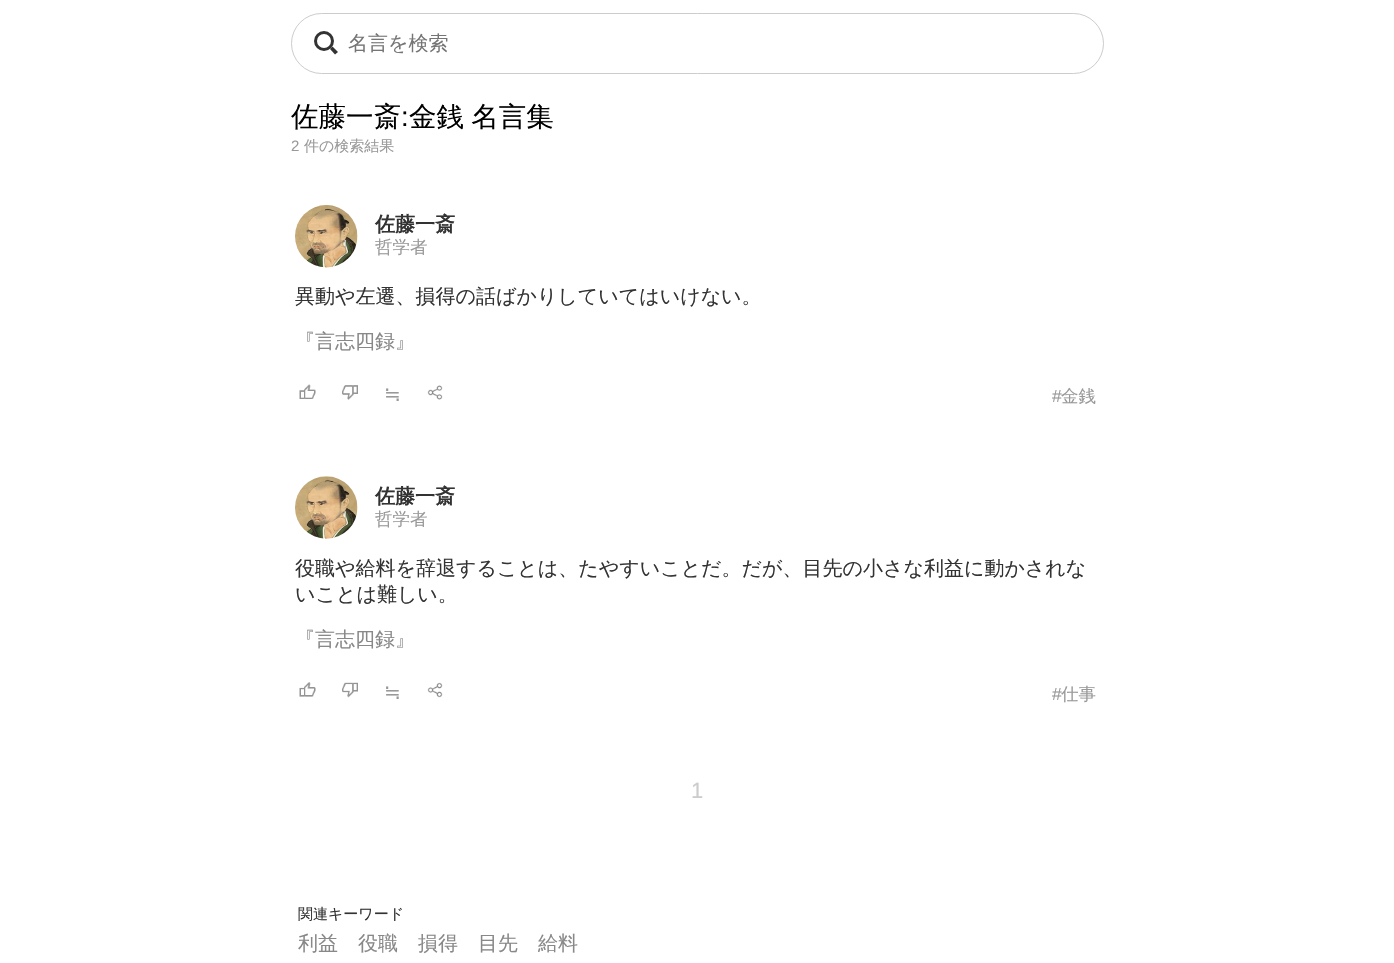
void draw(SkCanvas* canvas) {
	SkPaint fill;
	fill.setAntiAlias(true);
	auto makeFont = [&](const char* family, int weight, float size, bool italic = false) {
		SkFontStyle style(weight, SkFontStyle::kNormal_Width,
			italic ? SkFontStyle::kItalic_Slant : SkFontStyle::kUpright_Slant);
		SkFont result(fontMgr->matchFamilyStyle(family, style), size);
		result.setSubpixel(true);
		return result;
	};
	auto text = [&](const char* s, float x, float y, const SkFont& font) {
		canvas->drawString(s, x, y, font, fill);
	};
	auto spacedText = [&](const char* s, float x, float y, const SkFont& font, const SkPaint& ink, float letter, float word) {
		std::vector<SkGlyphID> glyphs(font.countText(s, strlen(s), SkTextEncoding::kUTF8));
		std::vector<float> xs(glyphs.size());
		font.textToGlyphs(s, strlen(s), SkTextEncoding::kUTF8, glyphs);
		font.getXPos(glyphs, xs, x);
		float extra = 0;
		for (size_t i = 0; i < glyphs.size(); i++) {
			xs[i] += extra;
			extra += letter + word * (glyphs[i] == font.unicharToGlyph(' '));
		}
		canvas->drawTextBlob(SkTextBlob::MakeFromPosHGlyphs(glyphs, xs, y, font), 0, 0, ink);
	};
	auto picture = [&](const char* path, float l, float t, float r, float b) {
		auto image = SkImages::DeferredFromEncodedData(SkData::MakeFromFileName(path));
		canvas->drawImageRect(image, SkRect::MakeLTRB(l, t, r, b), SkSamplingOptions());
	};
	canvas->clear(0xFFFFFFFF);
	fill.setStyle(SkPaint::kStroke_Style);
	fill.setStrokeWidth(1);
	fill.setColor(0xFFCCCCCC);
	canvas->drawRoundRect(SkRect::MakeLTRB(291.5f, 13.5f, 1103.5f, 73.5f), 30, 30, fill);
	fill.setStrokeWidth(3);
	fill.setColor(0xFF333333);
	canvas->drawCircle(324, 41, 8.5f, fill);
	fill.setStyle(SkPaint::kFill_Style);
	canvas->drawPath(SkPathBuilder().moveTo(332.5f, 46.5f).lineTo(338, 52).lineTo(335, 54.5f).lineTo(330, 49).close().detach(), fill);
	picture("image0.png", 295, 205, 358, 268);
	picture("image1.png", 299, 384, 316, 399);
	picture("image2.png", 342, 385, 358, 400);
	picture("image3.png", 427, 385, 443, 400);
	picture("image4.png", 295, 476, 358, 539);
	picture("image5.png", 299, 682, 316, 697);
	picture("image6.png", 342, 682, 358, 698);
	picture("image7.png", 427, 682, 443, 698);
	auto font1 = makeFont("WenQuanYi Zen Hei", 500, 20);
	fill.setColor(0xFF757575);
	text("名言を検索", 348, 50, font1);
	auto font2 = makeFont("WenQuanYi Zen Hei", 500, 27.5f);
	fill.setColor(0xFF000000);
	text("佐藤一斎", 291, 126, font2);
	auto font3 = makeFont("Liberation Sans", 400, 27.5f);
	text(":", 401, 126, font3);
	spacedText("金銭 名言集", 409, 126, font2, fill, 0, -1);
	auto font4 = makeFont("Liberation Sans", 400, 15);
	fill.setColor(0xFF999999);
	text("2", 291, 151, font4);
	auto font5 = makeFont("WenQuanYi Zen Hei", 500, 15);
	text("件の検索結果", 304, 151, font5);
	auto font6 = makeFont("WenQuanYi Zen Hei", 700, 20);
	fill.setColor(0xFF333333);
	text("佐藤一斎", 375, 231, font6);
	auto font7 = makeFont("WenQuanYi Zen Hei", 500, 17.5f);
	fill.setColor(0xFF999999);
	text("哲学者", 375, 253, font7);
	fill.setColor(0xFF333333);
	text("異動や左遷、損得の話ばかりしていてはいけない。", 295, 303, font1);
	fill.setColor(0xFF888888);
	text("『言志四録』", 295, 348, font1);
	auto font8 = makeFont("DejaVu Sans", 400, 20);
	fill.setColor(0xFF999999);
	text("≒", 384, 401, font8);
	auto font9 = makeFont("Liberation Sans", 400, 17.5f);
	text("#", 1052, 402, font9);
	text("金銭", 1061, 402, font7);
	fill.setColor(0xFF333333);
	text("佐藤一斎", 375, 503, font6);
	fill.setColor(0xFF999999);
	text("哲学者", 375, 525, font7);
	fill.setColor(0xFF333333);
	text("役職や給料を辞退することは、たやすいことだ。だが、目先の小さな利益に動かされな", 295, 575, font1);
	text("いことは難しい。", 295, 601, font1);
	fill.setColor(0xFF888888);
	text("『言志四録』", 295, 646, font1);
	fill.setColor(0xFF999999);
	text("≒", 384, 699, font8);
	text("#", 1052, 700, font9);
	text("仕事", 1061, 700, font7);
	auto font10 = makeFont("Liberation Sans", 400, 22);
	fill.setColor(0xFFCCCCCC);
	text("1", 691, 798, font10);
	fill.setColor(0xFF333333);
	text("関連キーワード", 298, 919, font5);
	fill.setColor(0xFF888888);
	text("利益", 298, 950, font1);
	text("役職", 358, 950, font1);
	text("損得", 418, 950, font1);
	text("目先", 478, 950, font1);
	text("給料", 538, 950, font1);
}
